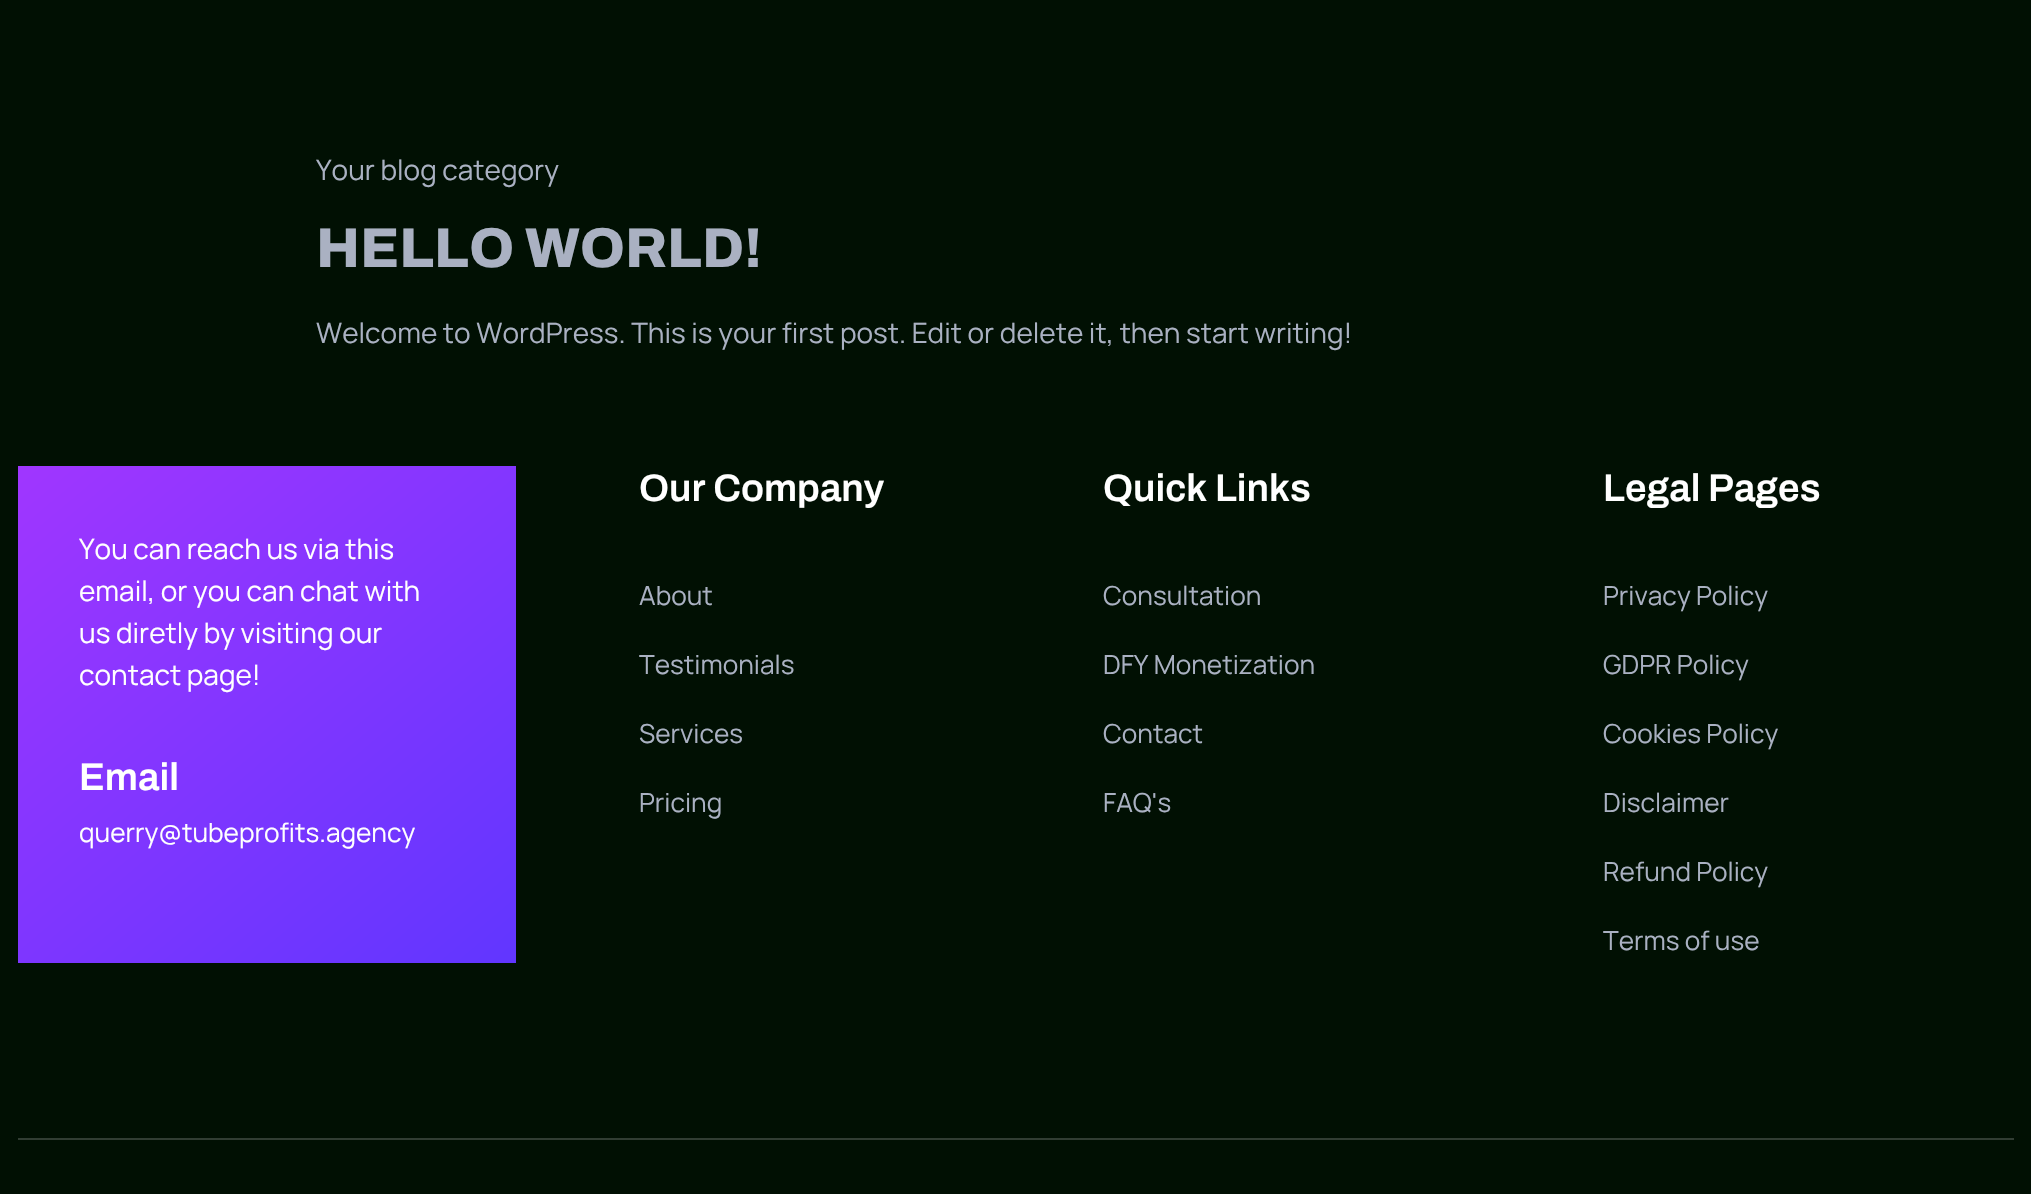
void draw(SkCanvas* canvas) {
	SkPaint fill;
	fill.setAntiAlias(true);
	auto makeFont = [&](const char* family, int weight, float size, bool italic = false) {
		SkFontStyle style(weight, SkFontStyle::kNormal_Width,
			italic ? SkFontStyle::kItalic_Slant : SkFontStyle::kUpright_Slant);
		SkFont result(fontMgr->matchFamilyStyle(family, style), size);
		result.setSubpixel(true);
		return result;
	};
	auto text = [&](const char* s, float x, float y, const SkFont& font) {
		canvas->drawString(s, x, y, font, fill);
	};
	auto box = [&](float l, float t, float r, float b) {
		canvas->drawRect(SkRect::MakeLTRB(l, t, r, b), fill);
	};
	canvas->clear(0xFF011003);
	{
		const SkColor colors[] = {0xFF6136FF, 0xFFA036FF};
		const float stops[] = {0, 1};
		const SkPoint ends[] = {{492, 983}, {41, 445}};
		fill.setShader(SkGradientShader::MakeLinear(ends, colors, stops, 2, SkTileMode::kClamp));
		fill.setAlpha(255);
	}
	box(18, 466, 516, 963);
	fill.setShader(nullptr);
	fill.setColor(0xFF313D33);
	box(18, 1138, 2014, 1140);
	auto font1 = makeFont("Manrope", 400, 28);
	fill.setColor(0xFFAAB1C2);
	text("Your blog category", 316, 180, font1);
	auto font2 = makeFont("Archivo", 800, 56);
	text("HELLO WORLD!", 316, 267, font2);
	text("Welcome to WordPress. This is your first post. Edit or delete it, then start writing!", 316, 343, font1);
	fill.setColor(0xFFFFFFFF);
	text("You can reach us via this", 79, 559, font1);
	text("email, or you can chat with", 79, 601, font1);
	text("us diretly by visiting our", 79, 643, font1);
	text("contact page!", 79, 685, font1);
	auto font3 = makeFont("Archivo", 600, 38.5f);
	text("Email", 79, 790, font3);
	auto font4 = makeFont("Manrope", 400, 26.25f);
	text("querry@tubeprofits.agency", 79, 842, font4);
	text("Our Company", 639, 501, font3);
	fill.setColor(0xFFAAB1C2);
	text("About", 639, 605, font4);
	text("Testimonials", 639, 674, font4);
	text("Services", 639, 743, font4);
	text("Pricing", 639, 812, font4);
	fill.setColor(0xFFFFFFFF);
	text("Quick Links", 1103, 501, font3);
	fill.setColor(0xFFAAB1C2);
	text("Consultation", 1103, 605, font4);
	text("DFY Monetization", 1103, 674, font4);
	text("Contact", 1103, 743, font4);
	text("FAQ's", 1103, 812, font4);
	fill.setColor(0xFFFFFFFF);
	text("Legal Pages", 1603, 501, font3);
	fill.setColor(0xFFAAB1C2);
	text("Privacy Policy", 1603, 605, font4);
	text("GDPR Policy", 1603, 674, font4);
	text("Cookies Policy", 1603, 743, font4);
	text("Disclaimer", 1603, 812, font4);
	text("Refund Policy", 1603, 881, font4);
	text("Terms of use", 1603, 950, font4);
}
